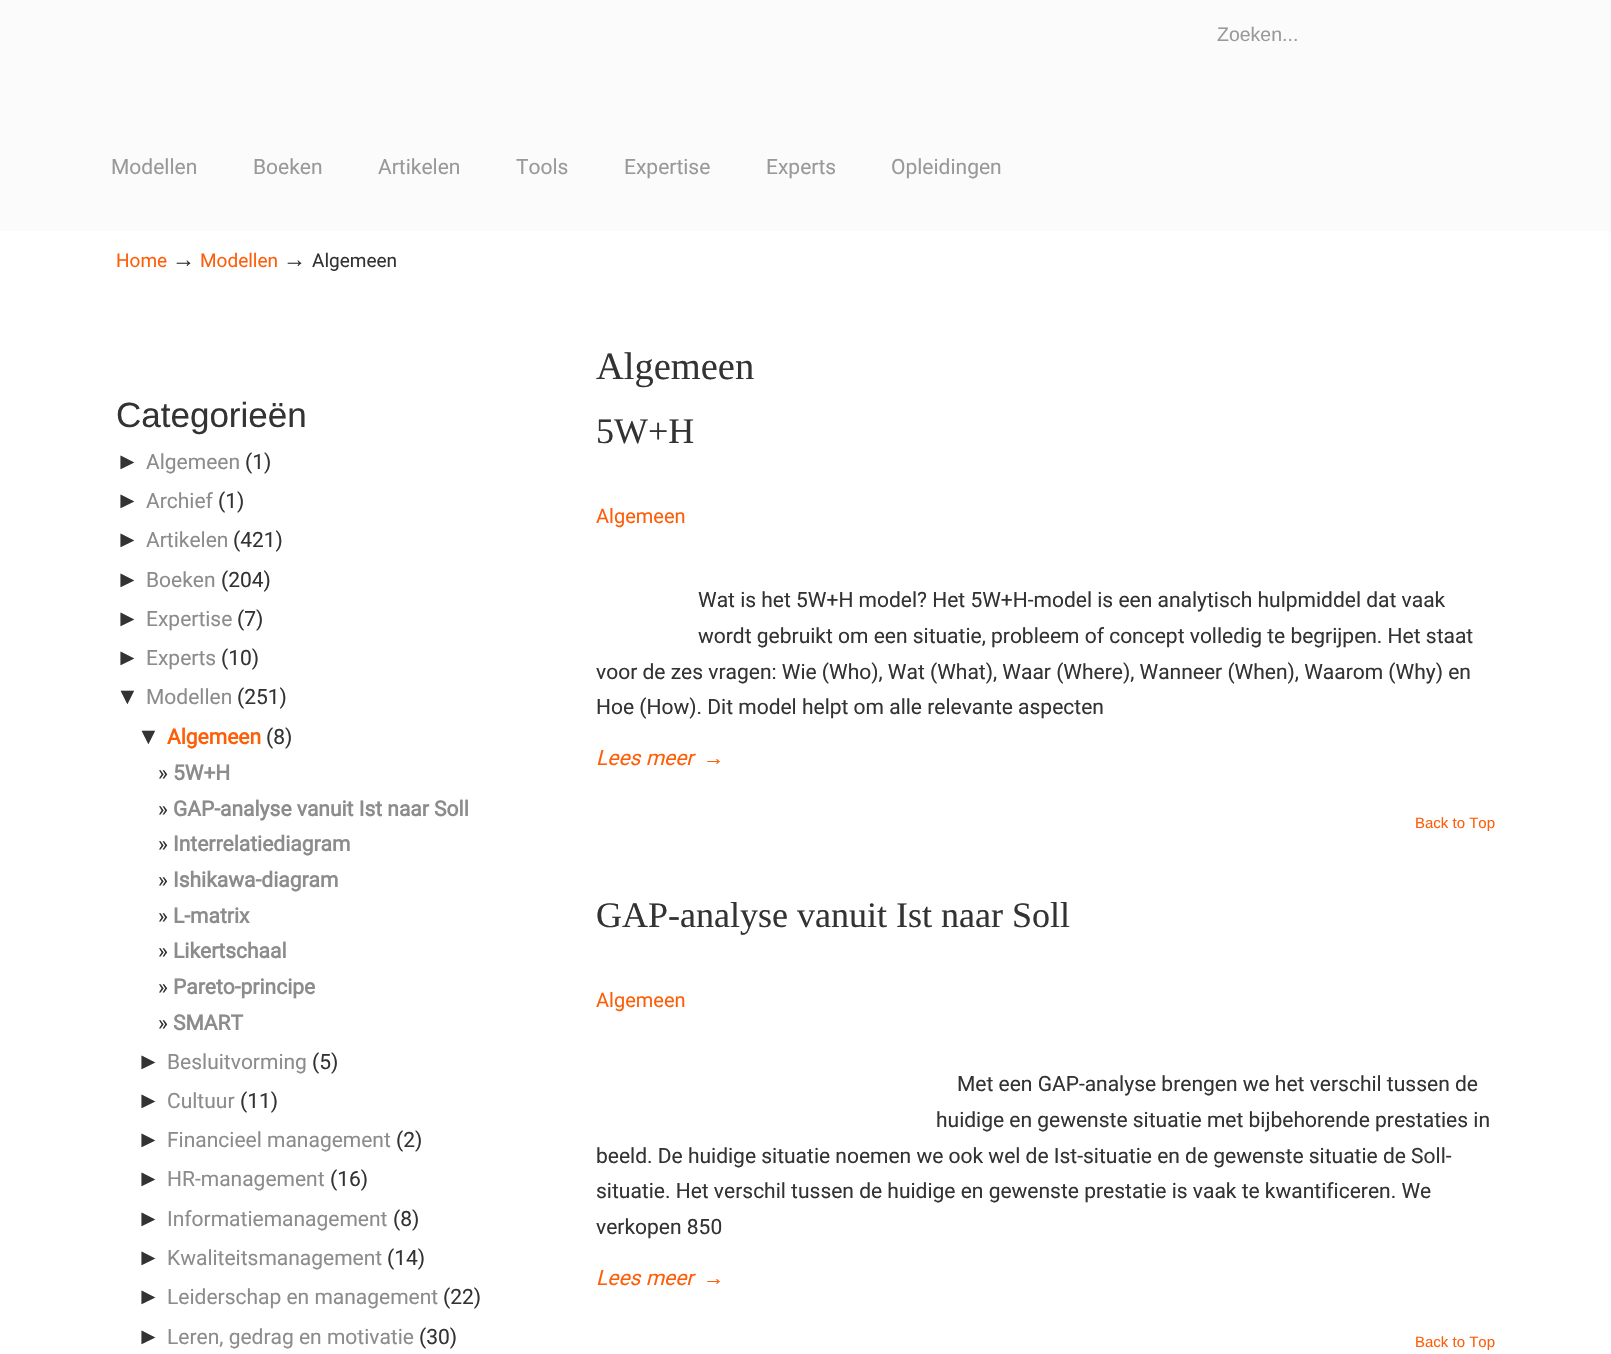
void draw(SkCanvas* canvas) {
	SkPaint fill;
	fill.setAntiAlias(true);
	auto makeFont = [&](const char* family, int weight, float size, bool italic = false) {
		SkFontStyle style(weight, SkFontStyle::kNormal_Width,
			italic ? SkFontStyle::kItalic_Slant : SkFontStyle::kUpright_Slant);
		SkFont result(fontMgr->matchFamilyStyle(family, style), size);
		result.setSubpixel(true);
		return result;
	};
	auto text = [&](const char* s, float x, float y, const SkFont& font) {
		canvas->drawString(s, x, y, font, fill);
	};
	auto box = [&](float l, float t, float r, float b) {
		canvas->drawRect(SkRect::MakeLTRB(l, t, r, b), fill);
	};
	canvas->clear(0xFFFBFBFB);
	fill.setColor(0xFFFFFFFF);
	box(0, 231, 1611, 1354);
	auto font1 = makeFont("Liberation Sans", 400, 19.5f);
	fill.setColor(0xFF999999);
	text("Zoeken...", 1217, 41, font1);
	auto font2 = makeFont("Roboto", 400, 21);
	text("Modellen", 111, 174, font2);
	text("Boeken", 253, 174, font2);
	text("Artikelen", 378, 174, font2);
	text("Tools", 516, 174, font2);
	text("Expertise", 624, 174, font2);
	text("Experts", 766, 174, font2);
	text("Opleidingen", 891, 174, font2);
	auto font3 = makeFont("Roboto", 400, 19);
	fill.setColor(0xFFFE5E08);
	text("Home", 116, 267, font3);
	auto font4 = makeFont("Liberation Sans", 400, 23);
	fill.setColor(0xFF333333);
	text("→", 172, 267, font4);
	fill.setColor(0xFFFE5E08);
	text("Modellen", 200, 267, font3);
	fill.setColor(0xFF333333);
	text("→", 283, 267, font4);
	text("Algemeen", 312, 267, font3);
	auto font5 = makeFont("Liberation Sans", 400, 35);
	text("Categorieën", 116, 427, font5);
	text("►", 116, 469, font4);
	fill.setColor(0xFF8C8C8C);
	text("Algemeen", 146, 469, font2);
	fill.setColor(0xFF333333);
	text("(1)", 245, 469, font2);
	text("►", 116, 508, font4);
	fill.setColor(0xFF8C8C8C);
	text("Archief", 146, 508, font2);
	fill.setColor(0xFF333333);
	text("(1)", 218, 508, font2);
	text("►", 116, 547, font4);
	fill.setColor(0xFF8C8C8C);
	text("Artikelen", 146, 547, font2);
	fill.setColor(0xFF333333);
	text("(421)", 233, 547, font2);
	text("►", 116, 587, font4);
	fill.setColor(0xFF8C8C8C);
	text("Boeken", 146, 587, font2);
	fill.setColor(0xFF333333);
	text("(204)", 221, 587, font2);
	text("►", 116, 626, font4);
	fill.setColor(0xFF8C8C8C);
	text("Expertise", 146, 626, font2);
	fill.setColor(0xFF333333);
	text("(7)", 237, 626, font2);
	text("►", 116, 665, font4);
	fill.setColor(0xFF8C8C8C);
	text("Experts", 146, 665, font2);
	fill.setColor(0xFF333333);
	text("(10)", 221, 665, font2);
	text("▼", 116, 704, font4);
	fill.setColor(0xFF8C8C8C);
	text("Modellen", 146, 704, font2);
	fill.setColor(0xFF333333);
	text("(251)", 237, 704, font2);
	text("▼", 137, 744, font4);
	auto font6 = makeFont("Roboto", 700, 21);
	fill.setColor(0xFFFE5E08);
	text("Algemeen", 167, 744, font6);
	fill.setColor(0xFF333333);
	text("(8)", 266, 744, font2);
	text("»", 158, 780, font2);
	fill.setColor(0xFF8C8C8C);
	text("5W+H", 173, 780, font6);
	fill.setColor(0xFF333333);
	text("»", 158, 816, font2);
	fill.setColor(0xFF8C8C8C);
	text("GAP-analyse vanuit Ist naar Soll", 173, 816, font6);
	fill.setColor(0xFF333333);
	text("»", 158, 851, font2);
	fill.setColor(0xFF8C8C8C);
	text("Interrelatiediagram", 173, 851, font6);
	fill.setColor(0xFF333333);
	text("»", 158, 887, font2);
	fill.setColor(0xFF8C8C8C);
	text("Ishikawa-diagram", 173, 887, font6);
	fill.setColor(0xFF333333);
	text("»", 158, 923, font2);
	fill.setColor(0xFF8C8C8C);
	text("L-matrix", 173, 923, font6);
	fill.setColor(0xFF333333);
	text("»", 158, 958, font2);
	fill.setColor(0xFF8C8C8C);
	text("Likertschaal", 173, 958, font6);
	fill.setColor(0xFF333333);
	text("»", 158, 994, font2);
	fill.setColor(0xFF8C8C8C);
	text("Pareto-principe", 173, 994, font6);
	fill.setColor(0xFF333333);
	text("»", 158, 1030, font2);
	fill.setColor(0xFF8C8C8C);
	text("SMART", 173, 1030, font6);
	fill.setColor(0xFF333333);
	text("►", 137, 1069, font4);
	fill.setColor(0xFF8C8C8C);
	text("Besluitvorming", 167, 1069, font2);
	fill.setColor(0xFF333333);
	text("(5)", 312, 1069, font2);
	text("►", 137, 1108, font4);
	fill.setColor(0xFF8C8C8C);
	text("Cultuur", 167, 1108, font2);
	fill.setColor(0xFF333333);
	text("(11)", 240, 1108, font2);
	text("►", 137, 1147, font4);
	fill.setColor(0xFF8C8C8C);
	text("Financieel management", 167, 1147, font2);
	fill.setColor(0xFF333333);
	text("(2)", 396, 1147, font2);
	text("►", 137, 1186, font4);
	fill.setColor(0xFF8C8C8C);
	text("HR-management", 167, 1186, font2);
	fill.setColor(0xFF333333);
	text("(16)", 330, 1186, font2);
	text("►", 137, 1226, font4);
	fill.setColor(0xFF8C8C8C);
	text("Informatiemanagement", 167, 1226, font2);
	fill.setColor(0xFF333333);
	text("(8)", 393, 1226, font2);
	text("►", 137, 1265, font4);
	fill.setColor(0xFF8C8C8C);
	text("Kwaliteitsmanagement", 167, 1265, font2);
	fill.setColor(0xFF333333);
	text("(14)", 387, 1265, font2);
	text("►", 137, 1304, font4);
	fill.setColor(0xFF8C8C8C);
	text("Leiderschap en management", 167, 1304, font2);
	fill.setColor(0xFF333333);
	text("(22)", 443, 1304, font2);
	text("►", 137, 1344, font4);
	fill.setColor(0xFF8C8C8C);
	text("Leren, gedrag en motivatie", 167, 1344, font2);
	fill.setColor(0xFF333333);
	text("(30)", 419, 1344, font2);
	auto font7 = makeFont("Liberation Serif", 400, 38.5f);
	text("Algemeen", 596, 379, font7);
	auto font8 = makeFont("Liberation Serif", 400, 36);
	text("5W+H", 596, 443, font8);
	auto font9 = makeFont("Roboto", 400, 20);
	fill.setColor(0xFFFE5E08);
	text("Algemeen", 596, 523, font9);
	fill.setColor(0xFF333333);
	text("Wat is het 5W+H model? Het 5W+H-model is een analytisch hulpmiddel dat vaak", 698, 607, font2);
	text("wordt gebruikt om een situatie, probleem of concept volledig te begrijpen. Het staat", 698, 643, font2);
	text("voor de zes vragen: Wie (Who), Wat (What), Waar (Where), Wanneer (When), Waarom (Why) en", 596, 679, font2);
	text("Hoe (How). Dit model helpt om alle relevante aspecten", 596, 714, font2);
	auto font10 = makeFont("Roboto", 400, 21, true);
	fill.setColor(0xFFFE5E08);
	text("Lees meer", 596, 765, font10);
	auto font11 = makeFont("Liberation Sans", 400, 21);
	text("→", 703, 765, font11);
	auto font12 = makeFont("Liberation Sans", 400, 15);
	text("Back to Top", 1415, 828, font12);
	fill.setColor(0xFF333333);
	text("GAP-analyse vanuit Ist naar Soll", 596, 927, font8);
	fill.setColor(0xFFFE5E08);
	text("Algemeen", 596, 1007, font9);
	fill.setColor(0xFF333333);
	text("Met een GAP-analyse brengen we het verschil tussen de", 957, 1091, font2);
	text("huidige en gewenste situatie met bijbehorende prestaties in", 936, 1127, font2);
	text("beeld. De huidige situatie noemen we ook wel de Ist-situatie en de gewenste situatie de Soll-", 596, 1163, font2);
	text("situatie. Het verschil tussen de huidige en gewenste prestatie is vaak te kwantificeren. We", 596, 1198, font2);
	text("verkopen 850", 596, 1234, font2);
	fill.setColor(0xFFFE5E08);
	text("Lees meer", 596, 1285, font10);
	text("→", 703, 1285, font11);
	text("Back to Top", 1415, 1347, font12);
}
